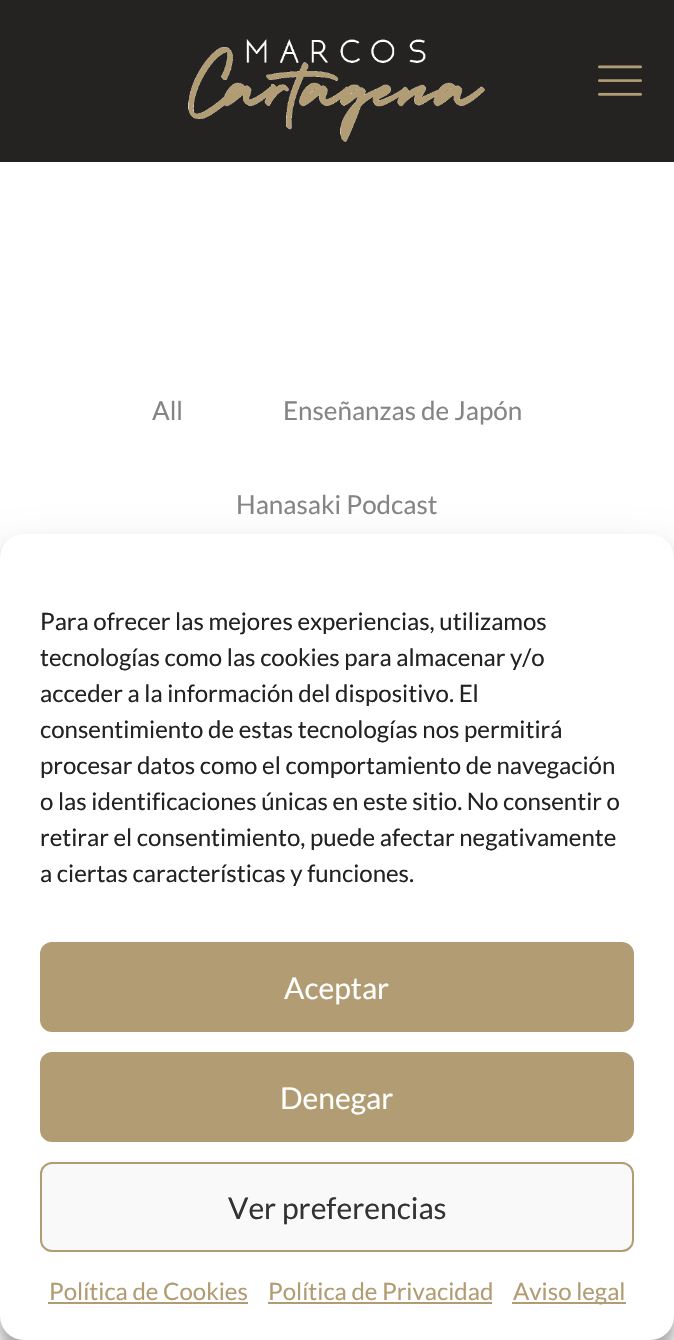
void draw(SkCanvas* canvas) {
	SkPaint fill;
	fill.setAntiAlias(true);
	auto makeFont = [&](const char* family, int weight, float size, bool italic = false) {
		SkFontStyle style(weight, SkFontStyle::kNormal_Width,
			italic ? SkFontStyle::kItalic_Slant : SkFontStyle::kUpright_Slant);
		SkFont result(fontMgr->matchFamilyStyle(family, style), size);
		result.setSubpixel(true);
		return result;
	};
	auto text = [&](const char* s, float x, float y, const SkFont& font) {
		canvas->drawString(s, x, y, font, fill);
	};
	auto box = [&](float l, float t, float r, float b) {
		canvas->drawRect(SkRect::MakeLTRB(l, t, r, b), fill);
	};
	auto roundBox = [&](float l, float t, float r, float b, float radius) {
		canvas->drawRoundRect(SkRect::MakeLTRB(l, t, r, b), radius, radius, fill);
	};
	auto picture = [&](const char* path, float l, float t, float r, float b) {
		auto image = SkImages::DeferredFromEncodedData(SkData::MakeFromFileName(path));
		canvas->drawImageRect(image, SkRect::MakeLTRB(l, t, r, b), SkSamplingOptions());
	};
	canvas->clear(0xFFFFFFFF);
	fill.setColor(0xFF252322);
	box(0, 0, 674, 162);
	picture("image0.png", 188, 39, 485, 142);
	picture("image1.png", 598, 65, 642, 96);
	fill.setColor(0x3B000000);
	fill.setMaskFilter(SkMaskFilter::MakeBlur(kNormal_SkBlurStyle, 6));
	canvas->drawRoundRect(SkRect::MakeLTRB(0, 546, 674, 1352), 24, 24, fill);
	fill.setMaskFilter(nullptr);
	fill.setColor(0x30000000);
	fill.setMaskFilter(SkMaskFilter::MakeBlur(kNormal_SkBlurStyle, 20));
	canvas->drawRoundRect(SkRect::MakeLTRB(0, 554, 674, 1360), 24, 24, fill);
	fill.setMaskFilter(nullptr);
	fill.setColor(0xFFFFFFFF);
	roundBox(0, 534, 674, 1340, 24);
	fill.setColor(0xFFB19C73);
	canvas->drawRoundRect(SkRect::MakeLTRB(41, 943, 633, 1031), 11, 11, fill);
	fill.setStyle(SkPaint::kStroke_Style);
	fill.setStrokeWidth(2);
	canvas->drawRoundRect(SkRect::MakeLTRB(41, 943, 633, 1031), 11, 11, fill);
	fill.setStyle(SkPaint::kFill_Style);
	canvas->drawRoundRect(SkRect::MakeLTRB(41, 1053, 633, 1141), 11, 11, fill);
	fill.setStyle(SkPaint::kStroke_Style);
	canvas->drawRoundRect(SkRect::MakeLTRB(41, 1053, 633, 1141), 11, 11, fill);
	fill.setStyle(SkPaint::kFill_Style);
	fill.setColor(0xFFF9F9F9);
	canvas->drawRoundRect(SkRect::MakeLTRB(41, 1163, 633, 1251), 11, 11, fill);
	fill.setStyle(SkPaint::kStroke_Style);
	fill.setColor(0xFFB19C73);
	canvas->drawRoundRect(SkRect::MakeLTRB(41, 1163, 633, 1251), 11, 11, fill);
	fill.setStyle(SkPaint::kFill_Style);
	box(48, 1302, 248, 1304);
	box(268, 1302, 492, 1304);
	box(512, 1302, 626, 1304);
	auto font1 = makeFont("Lato", 400, 26);
	fill.setColor(0xFF858585);
	text("All", 152, 420, font1);
	text("Enseñanzas de Japón", 283, 420, font1);
	text("Hanasaki Podcast", 236, 514, font1);
	auto font2 = makeFont("Lato", 400, 24);
	fill.setColor(0xFF222222);
	text("Para ofrecer las mejores experiencias, utilizamos", 40, 630, font2);
	text("tecnologías como las cookies para almacenar y/o", 40, 666, font2);
	text("acceder a la información del dispositivo. El", 40, 702, font2);
	text("consentimiento de estas tecnologías nos permitirá", 40, 738, font2);
	text("procesar datos como el comportamiento de navegación", 40, 774, font2);
	text("o las identificaciones únicas en este sitio. No consentir o", 40, 810, font2);
	text("retirar el consentimiento, puede afectar negativamente", 40, 846, font2);
	text("a ciertas características y funciones.", 40, 882, font2);
	auto font3 = makeFont("Lato", 400, 30);
	fill.setColor(0xFFFFFFFF);
	text("Aceptar", 284, 999, font3);
	text("Denegar", 280, 1109, font3);
	fill.setColor(0xFF333333);
	text("Ver preferencias", 228, 1219, font3);
	fill.setColor(0xFFB19C73);
	text("Política de Cookies", 49, 1300, font2);
	text("Política de Privacidad", 268, 1300, font2);
	text("Aviso legal", 513, 1300, font2);
}
